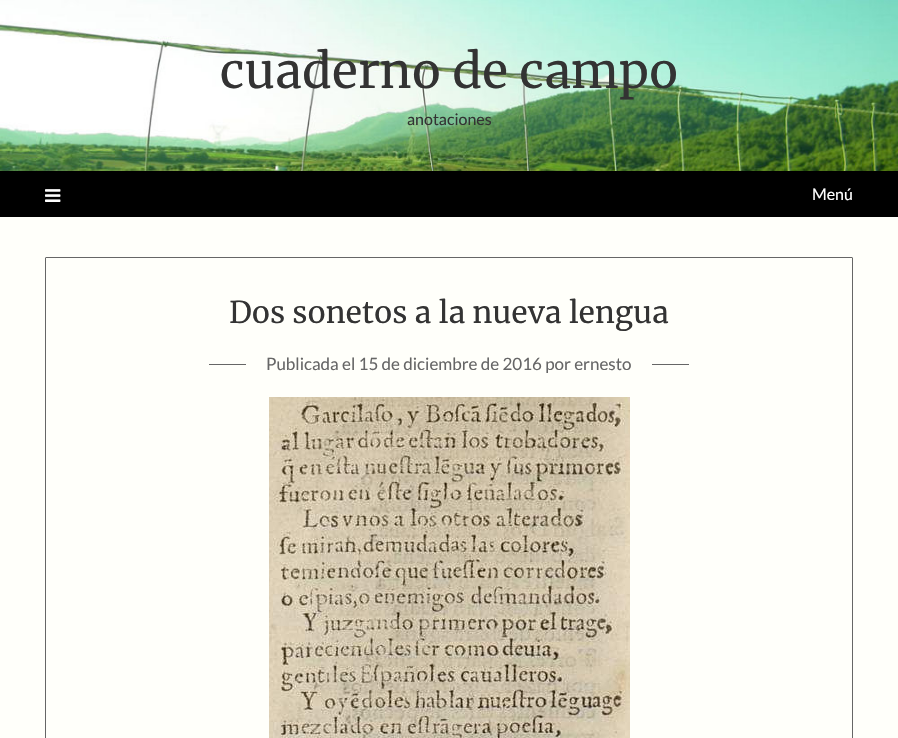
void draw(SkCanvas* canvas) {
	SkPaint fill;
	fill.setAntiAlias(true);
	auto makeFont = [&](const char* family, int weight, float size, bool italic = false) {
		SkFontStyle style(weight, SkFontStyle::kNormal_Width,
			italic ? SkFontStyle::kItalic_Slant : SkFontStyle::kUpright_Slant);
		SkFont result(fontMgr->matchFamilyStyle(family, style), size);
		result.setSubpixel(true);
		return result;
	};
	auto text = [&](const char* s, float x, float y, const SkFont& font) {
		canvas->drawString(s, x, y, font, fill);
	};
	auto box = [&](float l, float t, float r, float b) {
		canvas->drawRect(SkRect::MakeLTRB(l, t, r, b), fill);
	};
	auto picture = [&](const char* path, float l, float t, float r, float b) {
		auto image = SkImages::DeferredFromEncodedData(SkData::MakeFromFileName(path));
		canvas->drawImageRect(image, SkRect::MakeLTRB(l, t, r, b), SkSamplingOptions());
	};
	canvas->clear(0xFFFFFFFA);
	picture("image0.png", 0, 0, 898, 171);
	fill.setColor(0xFF000000);
	box(0, 171, 898, 217);
	picture("image1.png", 45, 189, 61, 202);
	fill.setStyle(SkPaint::kStroke_Style);
	fill.setStrokeWidth(1);
	fill.setColor(0xFF666666);
	canvas->drawRoundRect(SkRect::MakeLTRB(45.5f, 257.5f, 852.5f, 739.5f), 0.5f, 0.5f, fill);
	fill.setStyle(SkPaint::kFill_Style);
	box(209, 364, 689, 365);
	fill.setColor(0xFFFFFFFA);
	box(246, 364, 652, 365);
	picture("image2.png", 269, 397, 630, 738);
	auto font1 = makeFont("Merriweather", 400, 48);
	fill.setColor(0xFF333333);
	text("cuaderno de campo", 220, 88, font1);
	auto font2 = makeFont("Lato", 400, 16);
	text("anotaciones", 407, 125, font2);
	fill.setColor(0xFFFFFFFF);
	text("Menú", 812, 200, font2);
	auto font3 = makeFont("Merriweather", 400, 30);
	fill.setColor(0xFF333333);
	text("Dos sonetos a la nueva lengua", 229, 323, font3);
	auto font4 = makeFont("Lato", 400, 17);
	fill.setColor(0xFF666666);
	text("Publicada el 15 de diciembre de 2016 por ernesto", 266, 370, font4);
}
